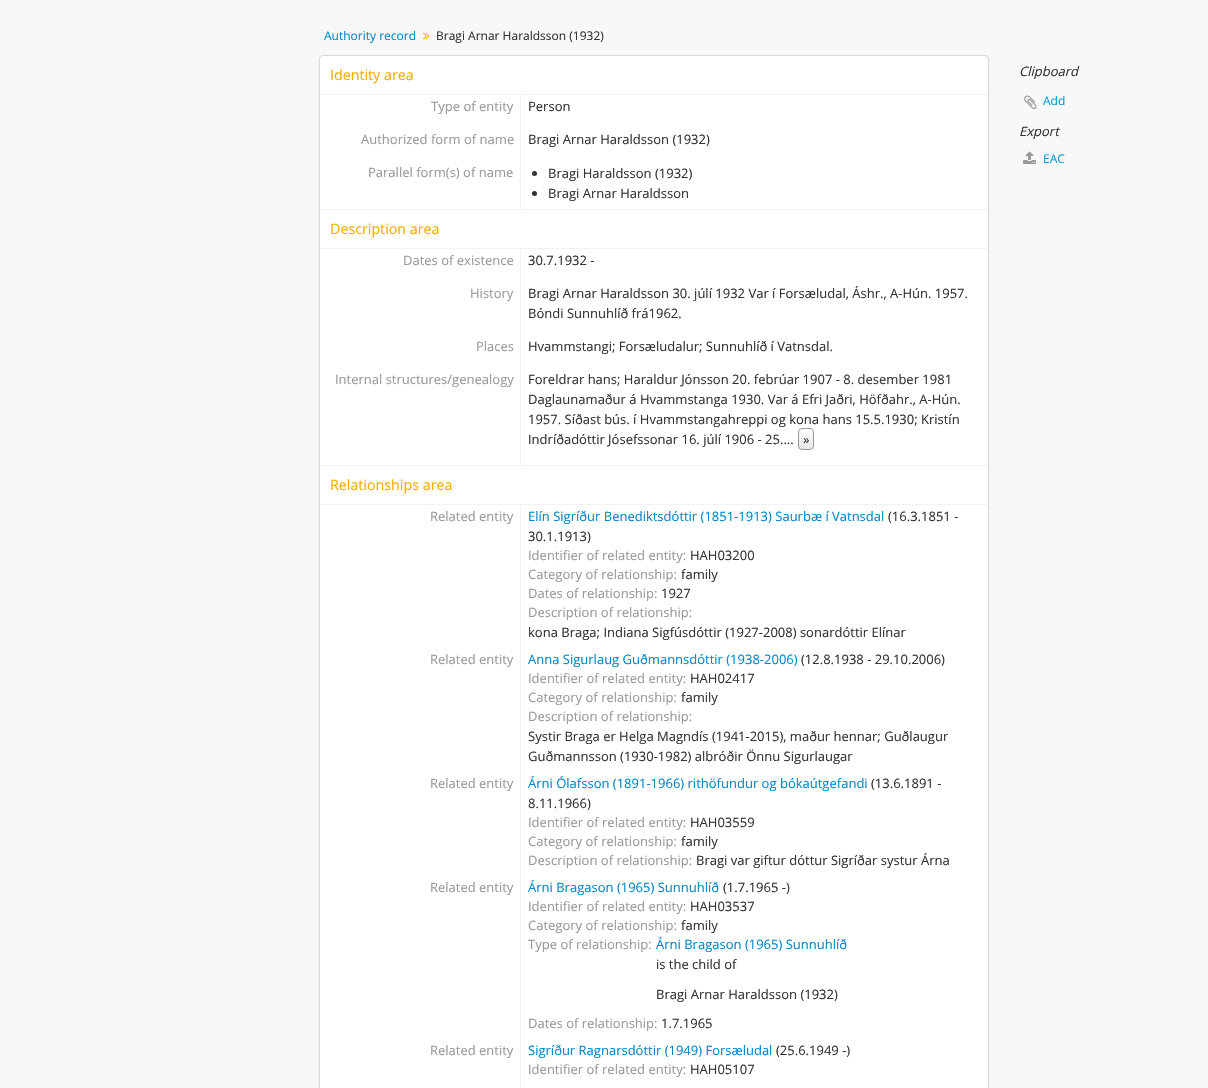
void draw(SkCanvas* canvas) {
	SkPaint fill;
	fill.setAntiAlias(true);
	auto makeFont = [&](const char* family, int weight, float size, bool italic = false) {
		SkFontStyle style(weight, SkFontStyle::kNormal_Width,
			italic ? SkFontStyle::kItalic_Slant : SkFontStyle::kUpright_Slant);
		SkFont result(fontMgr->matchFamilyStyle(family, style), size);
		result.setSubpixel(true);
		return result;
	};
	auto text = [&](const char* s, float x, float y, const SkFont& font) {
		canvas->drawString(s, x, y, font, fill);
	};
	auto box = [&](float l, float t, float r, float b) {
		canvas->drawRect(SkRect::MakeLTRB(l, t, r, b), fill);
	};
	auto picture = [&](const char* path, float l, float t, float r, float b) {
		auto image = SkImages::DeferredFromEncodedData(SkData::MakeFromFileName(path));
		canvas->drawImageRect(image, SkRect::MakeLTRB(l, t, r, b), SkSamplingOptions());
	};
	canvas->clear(0xFFF8F8F8);
	picture("image0.png", 423, 32, 430, 40);
	fill.setColor(0x33000000);
	fill.setMaskFilter(SkMaskFilter::MakeBlur(kNormal_SkBlurStyle, 0.5f));
	canvas->drawRoundRect(SkRect::MakeLTRB(319, 56, 989, 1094), 4, 4, fill);
	fill.setMaskFilter(nullptr);
	fill.setColor(0xFFFFFFFF);
	canvas->drawRoundRect(SkRect::MakeLTRB(319.5f, 55.5f, 988.5f, 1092.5f), 3.5f, 3.5f, fill);
	fill.setStyle(SkPaint::kStroke_Style);
	fill.setStrokeWidth(1);
	fill.setColor(0xFFD9D9D9);
	canvas->drawRoundRect(SkRect::MakeLTRB(319.5f, 55.5f, 988.5f, 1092.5f), 3.5f, 3.5f, fill);
	fill.setStyle(SkPaint::kFill_Style);
	fill.setColor(0xFFF2F2F2);
	box(320, 94, 988, 95);
	box(520, 95, 521, 209);
	fill.setColor(0xFF333333);
	canvas->drawCircle(534.5f, 173.5f, 2.5f, fill);
	canvas->drawCircle(534.5f, 193.5f, 2.5f, fill);
	fill.setColor(0xFFF2F2F2);
	box(320, 209, 988, 210);
	box(320, 248, 988, 249);
	box(520, 249, 521, 465);
	canvas->save();
	canvas->clipPath(SkPathBuilder().moveTo(802, 428).lineTo(810, 428).cubicTo(812, 428, 814, 430, 814, 432).lineTo(814, 446).cubicTo(814, 448, 812, 450, 810, 450).lineTo(802, 450).cubicTo(800, 450, 798, 448, 798, 446).lineTo(798, 432).cubicTo(798, 430, 800, 428, 802, 428).close().detach(), true);
	{
		const SkColor colors[] = {0xFFFFFFFF, 0xFFE6E6E6};
		const float stops[] = {0, 1};
		const SkPoint ends[] = {{806, 429}, {806, 449}};
		fill.setShader(SkGradientShader::MakeLinear(ends, colors, stops, 2, SkTileMode::kClamp));
		fill.setAlpha(255);
	}
	box(798, 429, 814, 449);
	canvas->restore();
	fill.setStyle(SkPaint::kStroke_Style);
	fill.setShader(nullptr);
	fill.setColor(0xFF999999);
	canvas->drawRoundRect(SkRect::MakeLTRB(798.5f, 428.5f, 813.5f, 449.5f), 3.5f, 3.5f, fill);
	fill.setStyle(SkPaint::kFill_Style);
	fill.setColor(0xFFF2F2F2);
	box(320, 465, 988, 466);
	box(320, 504, 988, 505);
	box(520, 505, 521, 1088);
	picture("image1.png", 1024, 95, 1037, 109);
	picture("image2.png", 1023, 151, 1036, 164);
	auto font1 = makeFont("Open Sans", 400, 12);
	fill.setColor(0xFF0088CC);
	text("Authority record", 324, 40, font1);
	fill.setColor(0xFF333333);
	text("Bragi Arnar Haraldsson (1932)", 436, 40, font1);
	auto font2 = makeFont("Open Sans", 400, 14.25f);
	fill.setColor(0xFFF6AC00);
	text("Identity area", 330, 80, font2);
	auto font3 = makeFont("Open Sans", 400, 13);
	fill.setColor(0xFF999999);
	text("Type of entity", 431, 111, font3);
	fill.setColor(0xFF333333);
	text("Person", 528, 111, font3);
	fill.setColor(0xFF999999);
	text("Authorized form of name", 361, 144, font3);
	fill.setColor(0xFF333333);
	text("Bragi Arnar Haraldsson (1932)", 528, 144, font3);
	fill.setColor(0xFF999999);
	text("Parallel form(s) of name", 368, 177, font3);
	fill.setColor(0xFF333333);
	text("Bragi Haraldsson (1932)", 548, 178, font3);
	text("Bragi Arnar Haraldsson", 548, 198, font3);
	fill.setColor(0xFFF6AC00);
	text("Description area", 330, 234, font2);
	fill.setColor(0xFF999999);
	text("Dates of existence", 403, 265, font3);
	fill.setColor(0xFF333333);
	text("30.7.1932 -", 528, 265, font3);
	fill.setColor(0xFF999999);
	text("History", 470, 298, font3);
	fill.setColor(0xFF333333);
	text("Bragi Arnar Haraldsson 30. júlí 1932 Var í Forsæludal, Áshr., A-Hún. 1957.", 528, 298, font3);
	text("Bóndi Sunnuhlíð frá1962.", 528, 318, font3);
	fill.setColor(0xFF999999);
	text("Places", 476, 351, font3);
	fill.setColor(0xFF333333);
	text("Hvammstangi; Forsæludalur; Sunnuhlíð í Vatnsdal.", 528, 351, font3);
	fill.setColor(0xFF999999);
	text("Internal structures/genealogy", 335, 384, font3);
	fill.setColor(0xFF333333);
	text("Foreldrar hans; Haraldur Jónsson 20. febrúar 1907 - 8. desember 1981", 528, 384, font3);
	text("Daglaunamaður á Hvammstanga 1930. Var á Efri Jaðri, Höfðahr., A-Hún.", 528, 404, font3);
	text("1957. Síðast bús. í Hvammstangahreppi og kona hans 15.5.1930; Kristín", 528, 424, font3);
	text("Indríðadóttir Jósefssonar 16. júlí 1906 - 25....", 528, 444, font3);
	text("»", 803, 444, font3);
	fill.setColor(0xFFF6AC00);
	text("Relationships area", 330, 490, font2);
	fill.setColor(0xFF999999);
	text("Related entity", 430, 521, font3);
	fill.setColor(0xFF0088CC);
	text("Elín Sigríður Benediktsdóttir (1851-1913) Saurbæ í Vatnsdal", 528, 521, font3);
	fill.setColor(0xFF333333);
	text("(16.3.1851 -", 888, 521, font3);
	text("30.1.1913)", 528, 541, font3);
	fill.setColor(0xFF999999);
	text("Identifier of related entity:", 528, 560, font3);
	fill.setColor(0xFF333333);
	text("HAH03200", 690, 560, font3);
	fill.setColor(0xFF999999);
	text("Category of relationship:", 528, 579, font3);
	fill.setColor(0xFF333333);
	text("family", 681, 579, font3);
	fill.setColor(0xFF999999);
	text("Dates of relationship:", 528, 598, font3);
	fill.setColor(0xFF333333);
	text("1927", 661, 598, font3);
	fill.setColor(0xFF999999);
	text("Description of relationship:", 528, 617, font3);
	fill.setColor(0xFF333333);
	text("kona Braga; Indiana Sigfúsdóttir (1927-2008) sonardóttir Elínar", 528, 637, font3);
	fill.setColor(0xFF999999);
	text("Related entity", 430, 664, font3);
	fill.setColor(0xFF0088CC);
	text("Anna Sigurlaug Guðmannsdóttir (1938-2006)", 528, 664, font3);
	fill.setColor(0xFF333333);
	text("(12.8.1938 - 29.10.2006)", 801, 664, font3);
	fill.setColor(0xFF999999);
	text("Identifier of related entity:", 528, 683, font3);
	fill.setColor(0xFF333333);
	text("HAH02417", 690, 683, font3);
	fill.setColor(0xFF999999);
	text("Category of relationship:", 528, 702, font3);
	fill.setColor(0xFF333333);
	text("family", 681, 702, font3);
	fill.setColor(0xFF999999);
	text("Description of relationship:", 528, 721, font3);
	fill.setColor(0xFF333333);
	text("Systir Braga er Helga Magndís (1941-2015), maður hennar; Guðlaugur", 528, 741, font3);
	text("Guðmannsson (1930-1982) albróðir Önnu Sigurlaugar", 528, 761, font3);
	fill.setColor(0xFF999999);
	text("Related entity", 430, 788, font3);
	fill.setColor(0xFF0088CC);
	text("Árni Ólafsson (1891-1966) rithöfundur og bókaútgefandi", 528, 788, font3);
	fill.setColor(0xFF333333);
	text("(13.6.1891 -", 871, 788, font3);
	text("8.11.1966)", 528, 808, font3);
	fill.setColor(0xFF999999);
	text("Identifier of related entity:", 528, 827, font3);
	fill.setColor(0xFF333333);
	text("HAH03559", 690, 827, font3);
	fill.setColor(0xFF999999);
	text("Category of relationship:", 528, 846, font3);
	fill.setColor(0xFF333333);
	text("family", 681, 846, font3);
	fill.setColor(0xFF999999);
	text("Description of relationship:", 528, 865, font3);
	fill.setColor(0xFF333333);
	text("Bragi var giftur dóttur Sigríðar systur Árna", 696, 865, font3);
	fill.setColor(0xFF999999);
	text("Related entity", 430, 892, font3);
	fill.setColor(0xFF0088CC);
	text("Árni Bragason (1965) Sunnuhlíð", 528, 892, font3);
	fill.setColor(0xFF333333);
	text("(1.7.1965 -)", 723, 892, font3);
	fill.setColor(0xFF999999);
	text("Identifier of related entity:", 528, 911, font3);
	fill.setColor(0xFF333333);
	text("HAH03537", 690, 911, font3);
	fill.setColor(0xFF999999);
	text("Category of relationship:", 528, 930, font3);
	fill.setColor(0xFF333333);
	text("family", 681, 930, font3);
	fill.setColor(0xFF999999);
	text("Type of relationship:", 528, 949, font3);
	fill.setColor(0xFF0088CC);
	text("Árni Bragason (1965) Sunnuhlíð", 656, 949, font3);
	fill.setColor(0xFF333333);
	text("is the child of", 656, 969, font3);
	text("Bragi Arnar Haraldsson (1932)", 656, 999, font3);
	fill.setColor(0xFF999999);
	text("Dates of relationship:", 528, 1028, font3);
	fill.setColor(0xFF333333);
	text("1.7.1965", 661, 1028, font3);
	fill.setColor(0xFF999999);
	text("Related entity", 430, 1055, font3);
	fill.setColor(0xFF0088CC);
	text("Sigríður Ragnarsdóttir (1949) Forsæludal", 528, 1055, font3);
	fill.setColor(0xFF333333);
	text("(25.6.1949 -)", 776, 1055, font3);
	fill.setColor(0xFF999999);
	text("Identifier of related entity:", 528, 1074, font3);
	fill.setColor(0xFF333333);
	text("HAH05107", 690, 1074, font3);
	auto font4 = makeFont("Open Sans", 400, 13, true);
	text("Clipboard", 1019, 76, font4);
	fill.setColor(0xFF049CDB);
	text("Add", 1043, 105, font1);
	fill.setColor(0xFF333333);
	text("Export", 1019, 136, font4);
	fill.setColor(0xFF049CDB);
	text("EAC", 1043, 163, font1);
}
